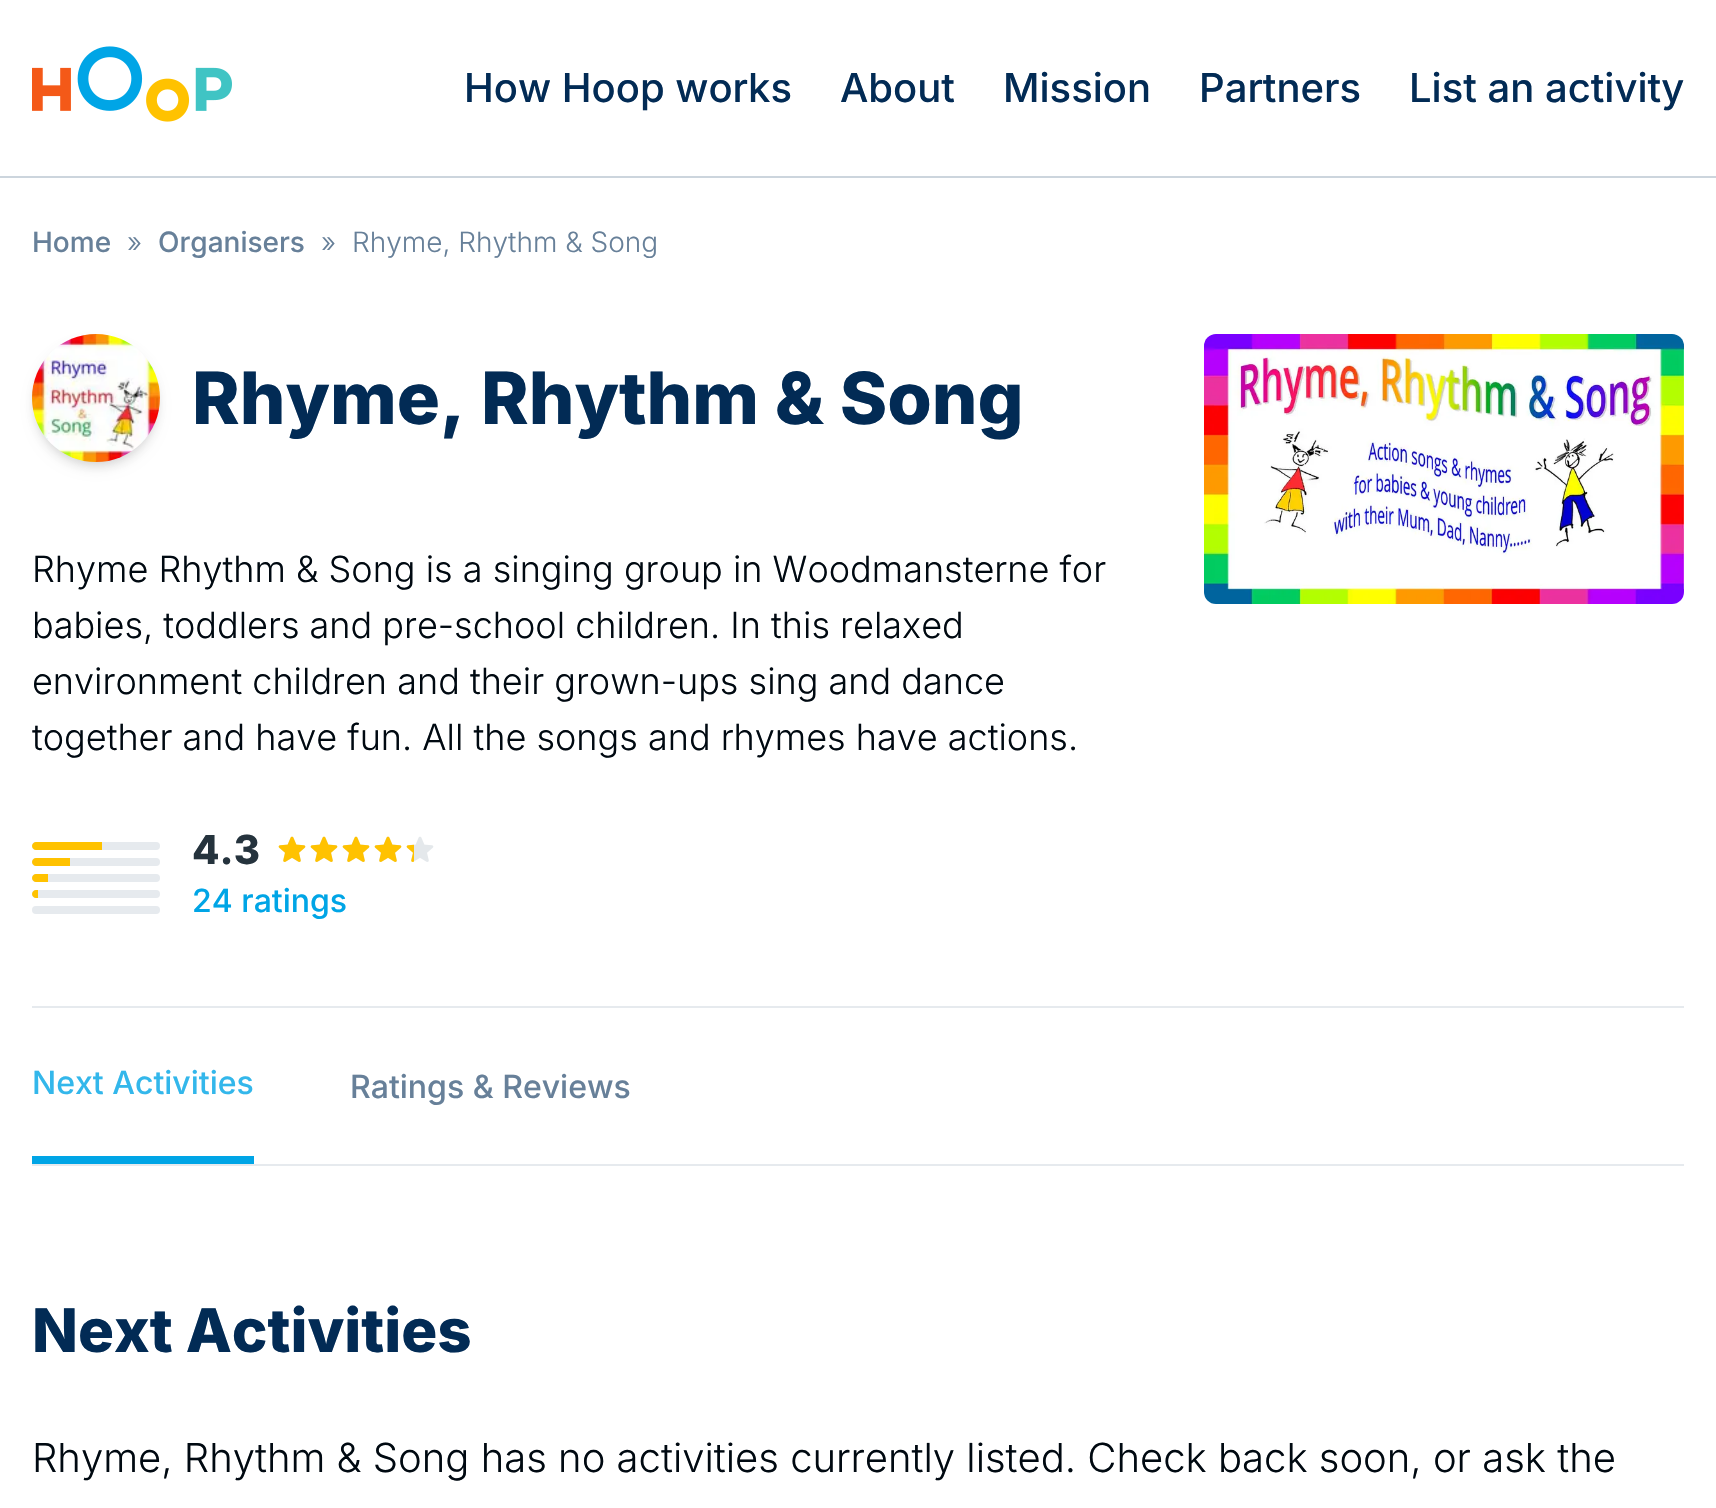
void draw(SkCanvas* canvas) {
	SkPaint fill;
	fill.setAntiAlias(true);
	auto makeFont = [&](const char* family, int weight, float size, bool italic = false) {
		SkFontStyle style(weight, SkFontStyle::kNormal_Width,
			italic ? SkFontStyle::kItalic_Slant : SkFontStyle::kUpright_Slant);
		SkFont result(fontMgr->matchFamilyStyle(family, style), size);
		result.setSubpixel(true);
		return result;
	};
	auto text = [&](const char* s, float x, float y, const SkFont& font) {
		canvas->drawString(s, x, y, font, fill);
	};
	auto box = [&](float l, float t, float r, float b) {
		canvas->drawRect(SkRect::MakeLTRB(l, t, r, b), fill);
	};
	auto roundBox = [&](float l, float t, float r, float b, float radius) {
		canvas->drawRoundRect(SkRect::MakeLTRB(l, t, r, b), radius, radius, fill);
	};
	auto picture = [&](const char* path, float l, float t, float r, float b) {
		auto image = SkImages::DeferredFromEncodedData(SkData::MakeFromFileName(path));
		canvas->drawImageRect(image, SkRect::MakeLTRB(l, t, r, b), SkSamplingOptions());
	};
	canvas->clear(0xFFFFFFFF);
	fill.setColor(0xFFCCD5DD);
	box(0, 176, 1716, 178);
	picture("image0.png", 32, 46, 232, 122);
	fill.setColor(0x1A000000);
	fill.setMaskFilter(SkMaskFilter::MakeBlur(kNormal_SkBlurStyle, 4));
	canvas->drawRoundRect(SkRect::MakeLTRB(36, 342, 156, 462), 60, 60, fill);
	fill.setMaskFilter(nullptr);
	fill.setMaskFilter(SkMaskFilter::MakeBlur(kNormal_SkBlurStyle, 6));
	canvas->drawRoundRect(SkRect::MakeLTRB(34, 344, 158, 468), 62, 62, fill);
	fill.setMaskFilter(nullptr);
	picture("image1.png", 32, 334, 160, 462);
	fill.setColor(0xFFE6EAEE);
	roundBox(32, 842, 160, 850, 4);
	fill.setColor(0xFFFFC200);
	canvas->drawPath(SkPathBuilder().moveTo(36, 842).lineTo(102, 842).lineTo(102, 850).lineTo(36, 850).cubicTo(34, 850, 32, 848, 32, 846).cubicTo(32, 844, 34, 842, 36, 842).close().detach(), fill);
	fill.setColor(0xFFE6EAEE);
	roundBox(32, 858, 160, 866, 4);
	fill.setColor(0xFFFFC200);
	canvas->drawPath(SkPathBuilder().moveTo(36, 858).lineTo(70, 858).lineTo(70, 866).lineTo(36, 866).cubicTo(34, 866, 32, 864, 32, 862).cubicTo(32, 860, 34, 858, 36, 858).close().detach(), fill);
	fill.setColor(0xFFE6EAEE);
	roundBox(32, 874, 160, 882, 4);
	fill.setColor(0xFFFFC200);
	canvas->drawPath(SkPathBuilder().moveTo(36, 874).lineTo(48, 874).lineTo(48, 882).lineTo(36, 882).cubicTo(34, 882, 32, 880, 32, 878).cubicTo(32, 876, 34, 874, 36, 874).close().detach(), fill);
	fill.setColor(0xFFE6EAEE);
	roundBox(32, 890, 160, 898, 4);
	fill.setColor(0xFFFFC200);
	canvas->drawPath(SkPathBuilder().moveTo(36, 890).lineTo(38, 890).lineTo(38, 898).lineTo(36, 898).cubicTo(34, 898, 32, 896, 32, 894).cubicTo(32, 892, 34, 890, 36, 890).close().detach(), fill);
	fill.setColor(0xFFE6EAEE);
	roundBox(32, 906, 160, 914, 4);
	picture("image2.png", 278, 836, 306, 862);
	picture("image2.png", 310, 836, 338, 862);
	picture("image2.png", 342, 836, 370, 862);
	picture("image2.png", 374, 836, 402, 862);
	picture("image2.png", 406, 836, 434, 862);
	picture("image3.png", 278, 836, 306, 862);
	picture("image3.png", 310, 836, 338, 862);
	picture("image3.png", 342, 836, 370, 862);
	picture("image3.png", 374, 836, 402, 862);
	picture("image4.png", 406, 844, 414, 862);
	picture("image5.png", 1204, 334, 1684, 604);
	box(32, 1006, 1684, 1008);
	box(32, 1164, 1684, 1166);
	fill.setColor(0xFF00A5E6);
	box(32, 1156, 254, 1164);
	auto font1 = makeFont("Inter", 500, 40);
	fill.setColor(0xFF022B55);
	text("How Hoop works", 464, 102, font1);
	text("About", 840, 102, font1);
	text("Mission", 1003, 102, font1);
	text("Partners", 1199, 102, font1);
	text("List an activity", 1409, 102, font1);
	auto font2 = makeFont("Inter", 500, 28);
	fill.setColor(0xFF678099);
	text("Home", 32, 252, font2);
	auto font3 = makeFont("Inter", 300, 28);
	text("»", 127, 252, font3);
	text("Organisers", 158, 252, font2);
	text("»", 321, 252, font3);
	text("Rhyme, Rhythm & Song", 352, 252, font3);
	auto font4 = makeFont("Inter", 800, 72);
	fill.setColor(0xFF022B55);
	text("Rhyme, Rhythm & Song", 192, 424, font4);
	auto font5 = makeFont("Inter", 300, 36);
	fill.setColor(0xFF000911);
	text("Rhyme Rhythm & Song is a singing group in Woodmansterne for", 32, 582, font5);
	text("babies, toddlers and pre-school children. In this relaxed", 32, 638, font5);
	text("environment children and their grown-ups sing and dance", 32, 694, font5);
	text("together and have fun. All the songs and rhymes have actions.", 32, 750, font5);
	auto font6 = makeFont("Inter", 800, 40);
	fill.setColor(0xFF25333D);
	text("4.3", 192, 864, font6);
	auto font7 = makeFont("Inter", 500, 32);
	fill.setColor(0xFF00A5E6);
	text("24 ratings", 192, 912, font7);
	fill.setColor(0xFF33B7EB);
	text("Next Activities", 32, 1094, font7);
	fill.setColor(0xFF678099);
	text("Ratings & Reviews", 350, 1098, font7);
	auto font8 = makeFont("Inter", 800, 60);
	fill.setColor(0xFF022B55);
	text("Next Activities", 32, 1352, font8);
	auto font9 = makeFont("Inter", 300, 40);
	fill.setColor(0xFF000911);
	text("Rhyme, Rhythm & Song has no activities currently listed. Check back soon, or ask the", 32, 1472, font9);
}
